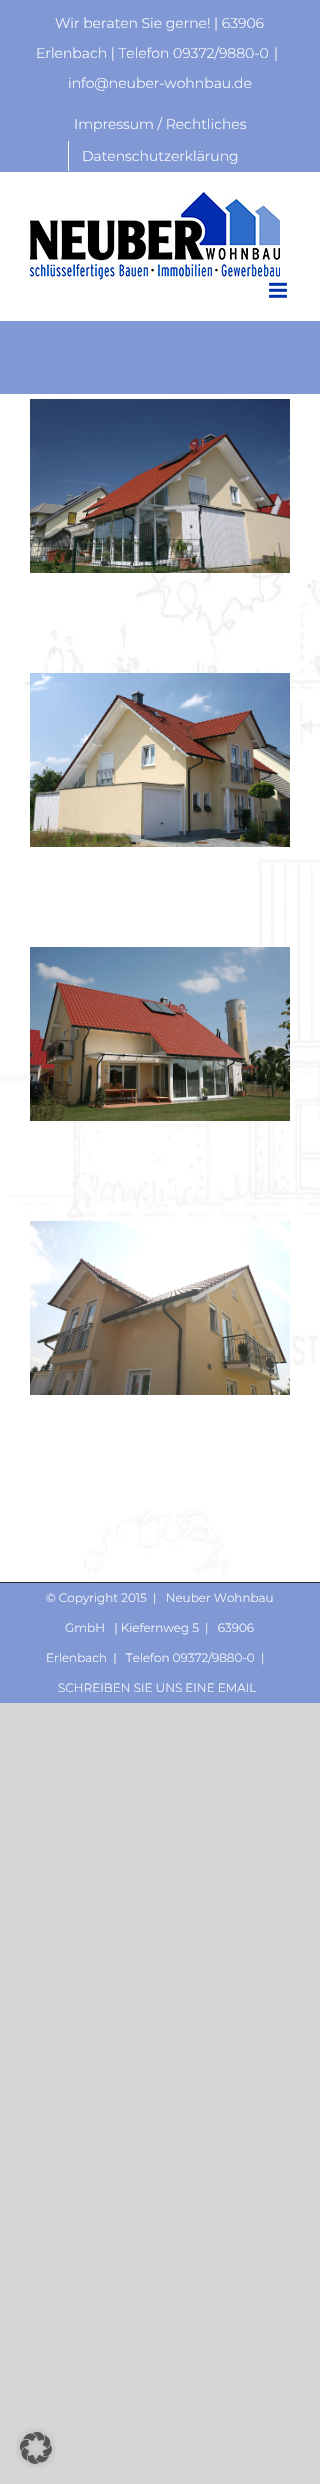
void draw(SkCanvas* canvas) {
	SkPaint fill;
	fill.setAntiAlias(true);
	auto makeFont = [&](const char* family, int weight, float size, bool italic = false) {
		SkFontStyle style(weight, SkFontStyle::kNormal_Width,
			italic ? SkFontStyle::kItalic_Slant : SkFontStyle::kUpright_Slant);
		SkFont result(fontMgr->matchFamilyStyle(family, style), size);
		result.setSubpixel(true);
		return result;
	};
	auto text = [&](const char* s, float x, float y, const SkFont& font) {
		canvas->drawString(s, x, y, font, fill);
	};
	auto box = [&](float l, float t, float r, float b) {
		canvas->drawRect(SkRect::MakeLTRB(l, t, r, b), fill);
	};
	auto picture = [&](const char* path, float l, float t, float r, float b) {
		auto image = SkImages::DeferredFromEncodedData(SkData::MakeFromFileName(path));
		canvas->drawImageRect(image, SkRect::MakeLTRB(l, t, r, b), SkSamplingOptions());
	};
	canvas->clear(0xFFD7D6D6);
	fill.setColor(0xFFFFFFFF);
	box(0, 172, 320, 1582);
	fill.setColor(0xFF8098D4);
	box(0, 0, 320, 172);
	fill.setColor(0xFFFFFFFF);
	box(68, 141, 69, 171);
	picture("image0.png", 30, 192, 280, 280);
	picture("image1.png", 269, 282, 287, 298);
	fill.setColor(0xFF8098D4);
	box(0, 321, 320, 394);
	picture("image2.png", 0, 494, 320, 1579);
	picture("image3.png", 30, 399, 290, 573);
	picture("image4.png", 30, 673, 290, 847);
	picture("image5.png", 30, 947, 290, 1121);
	picture("image6.png", 30, 1221, 290, 1395);
	box(0, 1583, 320, 1703);
	fill.setColor(0xFF2B2E35);
	box(0, 1582, 320, 1583);
	picture("image7.png", 16, 2428, 56, 2468);
	auto font1 = makeFont("Montserrat", 300, 14);
	fill.setColor(0xFFFFFFFF);
	text("Wir beraten Sie gerne! | 63906", 55, 28, font1);
	text("Erlenbach | Telefon 09372/9880-0", 36, 58, font1);
	text("|", 274, 58, font1);
	text("info@neuber-wohnbau.de", 68, 88, font1);
	text("Impressum / Rechtliches", 74, 129, font1);
	text("Datenschutzerklärung", 82, 161, font1);
	auto font2 = makeFont("Montserrat", 300, 12);
	text("© Copyright 2015  |   Neuber Wohnbau", 46, 1602, font2);
	text("GmbH   | Kiefernweg 5  |   63906", 65, 1632, font2);
	text("Erlenbach  |   Telefon 09372/9880-0  |", 46, 1662, font2);
	text("SCHREIBEN SIE UNS EINE EMAIL", 58, 1692, font2);
}
